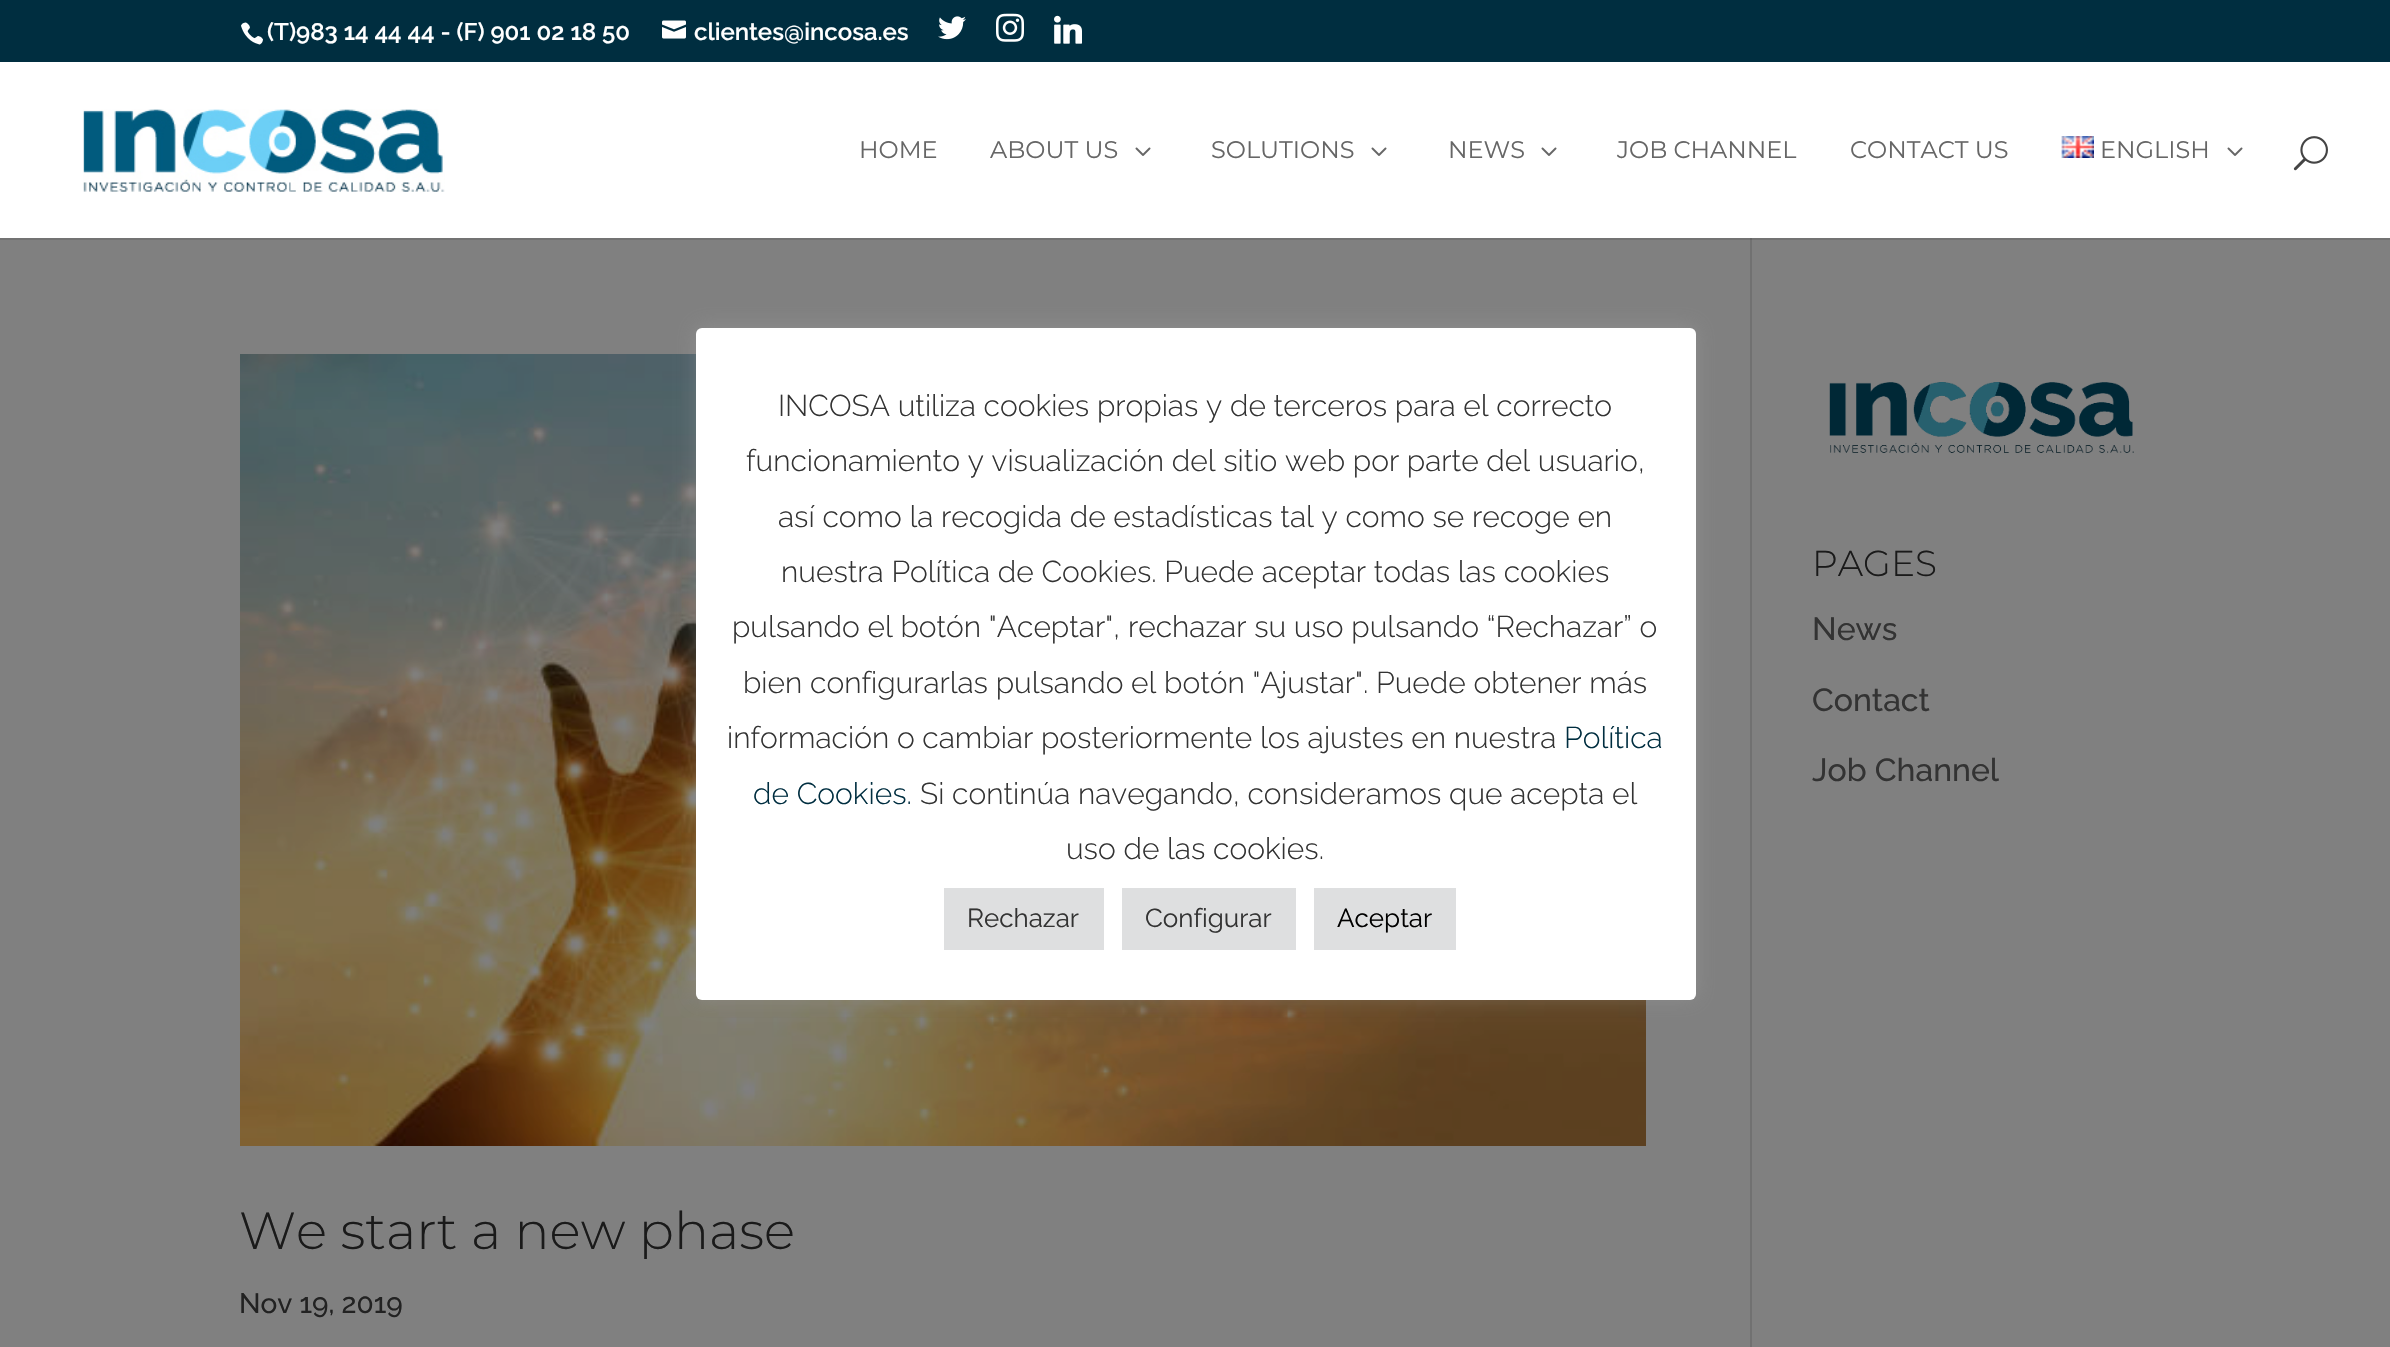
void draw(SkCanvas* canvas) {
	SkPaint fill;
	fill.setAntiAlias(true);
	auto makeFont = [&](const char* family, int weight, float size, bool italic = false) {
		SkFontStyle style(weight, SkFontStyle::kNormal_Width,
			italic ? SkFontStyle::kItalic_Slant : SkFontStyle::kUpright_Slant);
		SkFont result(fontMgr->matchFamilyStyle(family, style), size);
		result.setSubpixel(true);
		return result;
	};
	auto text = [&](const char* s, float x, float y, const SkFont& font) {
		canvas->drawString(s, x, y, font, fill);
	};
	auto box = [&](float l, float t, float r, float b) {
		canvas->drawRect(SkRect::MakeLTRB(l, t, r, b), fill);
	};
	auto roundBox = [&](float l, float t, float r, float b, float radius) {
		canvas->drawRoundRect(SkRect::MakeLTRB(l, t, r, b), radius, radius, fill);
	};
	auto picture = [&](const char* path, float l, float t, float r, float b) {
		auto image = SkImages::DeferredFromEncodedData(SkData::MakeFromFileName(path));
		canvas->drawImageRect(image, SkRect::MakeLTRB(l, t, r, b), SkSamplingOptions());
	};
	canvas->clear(0xFF808080);
	fill.setColor(0xFF737373);
	box(0, 238, 2390, 240);
	fill.setColor(0xFF002E40);
	box(0, 0, 2390, 62);
	picture("image0.png", 241, 22, 263, 45);
	picture("image1.png", 662, 20, 686, 39);
	picture("image2.png", 938, 16, 966, 40);
	picture("image3.png", 996, 13, 1024, 42);
	picture("image4.png", 1054, 15, 1082, 44);
	fill.setColor(0xFFFFFFFF);
	box(0, 62, 2390, 238);
	picture("image5.png", 83, 109, 445, 192);
	picture("image6.png", 1135, 147, 1151, 156);
	picture("image6.png", 1371, 147, 1387, 156);
	picture("image6.png", 1541, 147, 1557, 156);
	picture("image7.png", 2061, 136, 2094, 158);
	picture("image6.png", 2227, 147, 2243, 156);
	picture("image8.png", 2293, 136, 2328, 171);
	fill.setColor(0xFF717171);
	box(1750, 238, 1752, 1347);
	fill.setColor(0xFF666666);
	box(1750, 238, 1752, 240);
	picture("image9.png", 1829, 382, 2134, 453);
	picture("image10.png", 240, 354, 1646, 1146);
	fill.setColor(0x4DACABAB);
	fill.setMaskFilter(SkMaskFilter::MakeBlur(kNormal_SkBlurStyle, 10));
	canvas->drawRoundRect(SkRect::MakeLTRB(696, 326, 1696, 998), 6, 6, fill);
	fill.setMaskFilter(nullptr);
	fill.setColor(0xFFFFFFFF);
	roundBox(696, 328, 1696, 1000, 6);
	fill.setColor(0xFFDEDFE0);
	box(944, 888, 1104, 950);
	box(1122, 888, 1296, 950);
	box(1314, 888, 1456, 950);
	auto font1 = makeFont("Raleway", 600, 24);
	fill.setColor(0xFFFFFFFF);
	text("(T)983 14 44 44 - (F) 901 02 18 50", 267, 40, font1);
	text("clientes@incosa.es", 694, 40, font1);
	auto font2 = makeFont("Montserrat", 400, 24);
	fill.setColor(0xFF666666);
	text("HOME", 859, 158, font2);
	text("ABOUT US", 990, 158, font2);
	text("SOLUTIONS", 1211, 158, font2);
	text("NEWS", 1448, 158, font2);
	text("JOB CHANNEL", 1617, 158, font2);
	text("CONTACT US", 1850, 158, font2);
	text("ENGLISH", 2100, 158, font2);
	auto font3 = makeFont("Montserrat", 300, 36);
	fill.setColor(0xFF1A1A1A);
	text("PAGES", 1812, 576, font3);
	auto font4 = makeFont("Raleway", 500, 32);
	fill.setColor(0xFF333333);
	text("News", 1812, 640, font4);
	text("Contact", 1812, 711, font4);
	text("Job Channel", 1812, 781, font4);
	auto font5 = makeFont("Montserrat", 300, 52);
	fill.setColor(0xFF1A1A1A);
	text("We start a new phase", 239, 1249, font5);
	auto font6 = makeFont("Raleway", 500, 28);
	fill.setColor(0xFF222222);
	text("Nov 19, 2019", 239, 1313, font6);
	auto font7 = makeFont("Raleway", 300, 30);
	fill.setColor(0xFF333333);
	text("INCOSA utiliza cookies propias y de terceros para el correcto", 778, 416, font7);
	text("funcionamiento y visualización del sitio web por parte del usuario,", 746, 471, font7);
	text("así como la recogida de estadísticas tal y como se recoge en", 778, 527, font7);
	text("nuestra Política de Cookies. Puede aceptar todas las cookies", 781, 582, font7);
	text("pulsando el botón \"Aceptar\", rechazar su uso pulsando “Rechazar” o", 732, 637, font7);
	text("bien configurarlas pulsando el botón \"Ajustar\". Puede obtener más", 743, 693, font7);
	text("información o cambiar posteriormente los ajustes en nuestra", 727, 748, font7);
	fill.setColor(0xFF002E40);
	text("Política", 1564, 748, font7);
	text("de Cookies.", 753, 804, font7);
	fill.setColor(0xFF333333);
	text("Si continúa navegando, consideramos que acepta el", 920, 804, font7);
	text("uso de las cookies.", 1066, 859, font7);
	auto font8 = makeFont("Raleway", 400, 26);
	text("Rechazar", 967, 927, font8);
	text("Configurar", 1145, 927, font8);
	fill.setColor(0xFF000000);
	text("Aceptar", 1337, 927, font8);
}
